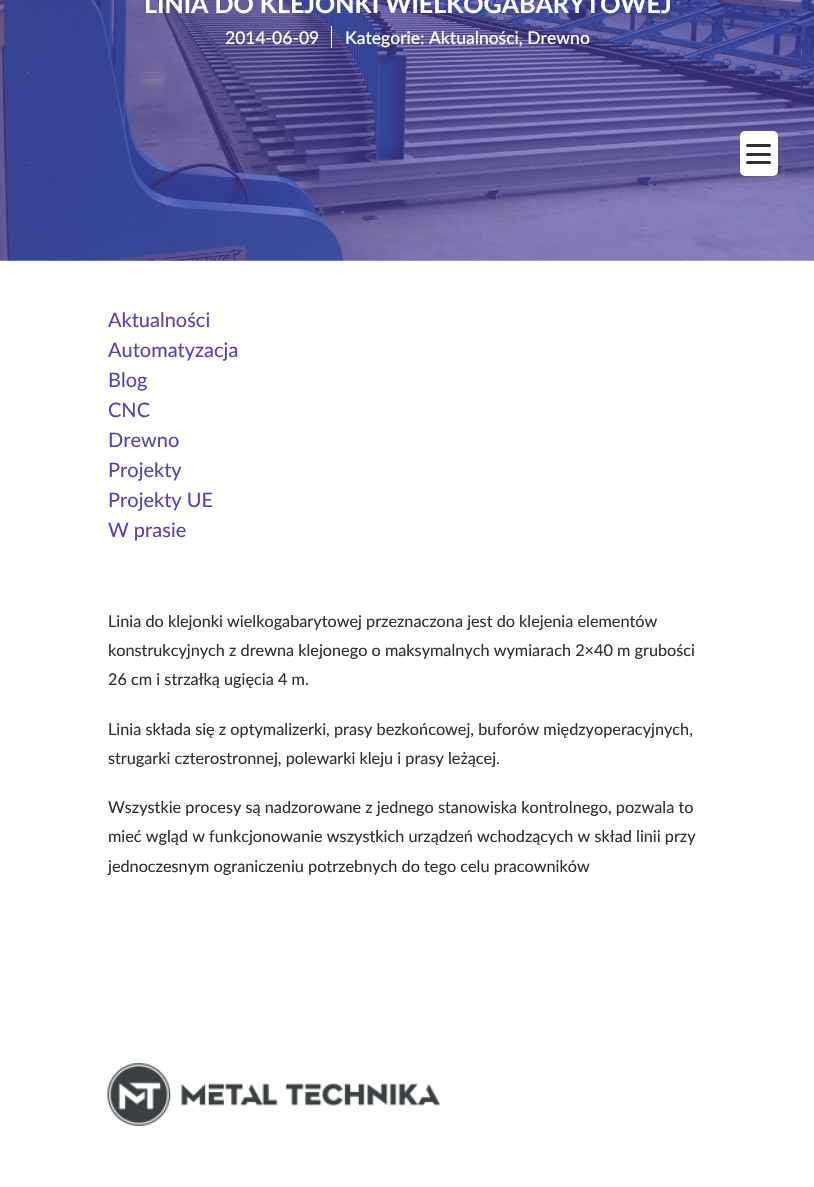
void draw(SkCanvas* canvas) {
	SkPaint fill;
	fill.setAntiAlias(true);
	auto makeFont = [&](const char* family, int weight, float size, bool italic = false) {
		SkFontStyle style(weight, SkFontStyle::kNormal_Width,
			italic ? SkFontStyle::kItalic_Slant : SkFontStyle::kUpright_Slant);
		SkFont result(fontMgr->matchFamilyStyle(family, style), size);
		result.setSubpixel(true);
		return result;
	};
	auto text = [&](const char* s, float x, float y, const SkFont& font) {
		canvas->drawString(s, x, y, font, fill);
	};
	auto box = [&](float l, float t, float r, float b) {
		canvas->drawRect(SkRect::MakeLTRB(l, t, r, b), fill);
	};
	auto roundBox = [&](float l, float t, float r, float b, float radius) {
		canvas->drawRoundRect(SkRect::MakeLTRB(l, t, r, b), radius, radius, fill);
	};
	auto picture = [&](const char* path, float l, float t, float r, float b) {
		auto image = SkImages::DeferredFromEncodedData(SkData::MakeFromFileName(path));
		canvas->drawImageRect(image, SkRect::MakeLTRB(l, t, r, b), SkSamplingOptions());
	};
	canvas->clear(0xFFFFFFFF);
	picture("image0.png", 0, 0, 814, 261);
	fill.setColor(0xFFFFFFFF);
	box(331, 26, 332, 48);
	roundBox(740, 131, 778, 176, 5);
	fill.setColor(0xFF2B3134);
	roundBox(746, 144, 771, 147, 1.5f);
	roundBox(746, 153, 771, 156, 1.5f);
	roundBox(746, 161, 771, 164, 1.5f);
	picture("image1.png", 107, 1063, 440, 1126);
	auto font1 = makeFont("Lato", 700, 25);
	fill.setColor(0xFFFFFFFF);
	text("LINIA DO KLEJONKI WIELKOGABARYTOWEJ", 144, 13, font1);
	auto font2 = makeFont("Lato", 500, 17.5f);
	text("2014-06-09", 225, 44, font2);
	text("Kategorie: Aktualności, Drewno", 345, 44, font2);
	auto font3 = makeFont("Lato", 400, 20);
	fill.setColor(0xFF4E46B2);
	text("Aktualności", 108, 327, font3);
	text("Automatyzacja", 108, 357, font3);
	text("Blog", 108, 387, font3);
	text("CNC", 108, 417, font3);
	text("Drewno", 108, 447, font3);
	text("Projekty", 108, 477, font3);
	text("Projekty UE", 108, 507, font3);
	text("W prasie", 108, 537, font3);
	auto font4 = makeFont("Lato", 400, 16.25f);
	fill.setColor(0xFF2B3134);
	text("Linia do klejonki wielkogabarytowej przeznaczona jest do klejenia elementów", 108, 627, font4);
	text("konstrukcyjnych z drewna klejonego o maksymalnych wymiarach 2×40 m grubości", 108, 656, font4);
	text("26 cm i strzałką ugięcia 4 m.", 108, 685, font4);
	text("Linia składa się z optymalizerki, prasy bezkońcowej, buforów międzyoperacyjnych,", 108, 735, font4);
	text("strugarki czterostronnej, polewarki kleju i prasy leżącej.", 108, 764, font4);
	text("Wszystkie procesy są nadzorowane z jednego stanowiska kontrolnego, pozwala to", 108, 813, font4);
	text("mieć wgląd w funkcjonowanie wszystkich urządzeń wchodzących w skład linii przy", 108, 842, font4);
	text("jednoczesnym ograniczeniu potrzebnych do tego celu pracowników", 108, 872, font4);
}
